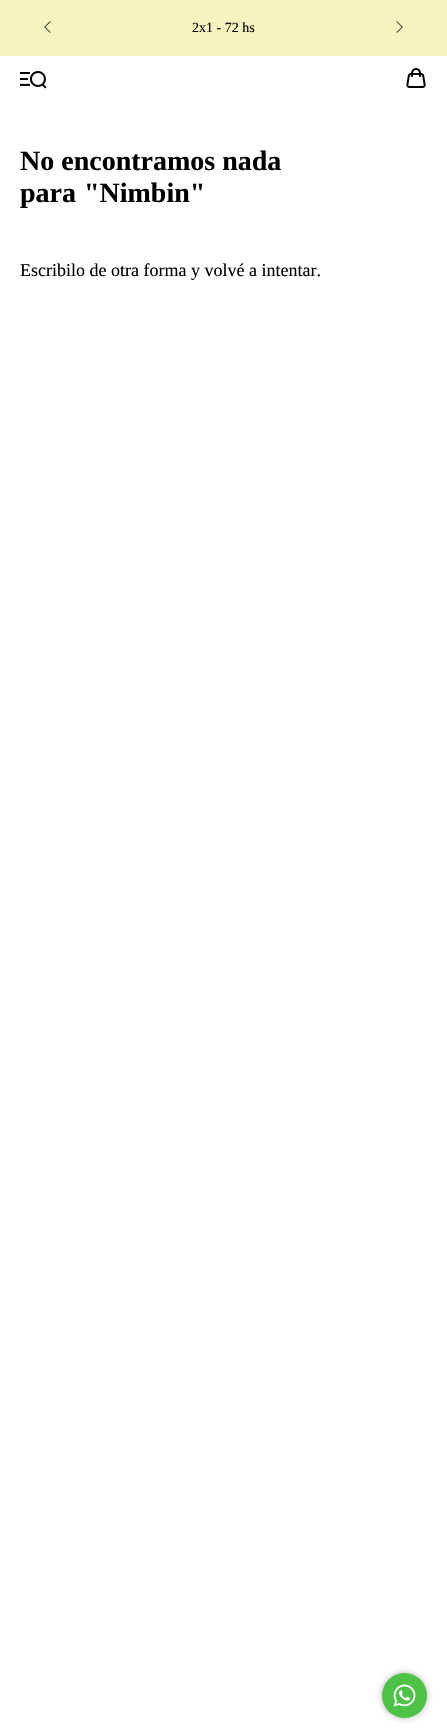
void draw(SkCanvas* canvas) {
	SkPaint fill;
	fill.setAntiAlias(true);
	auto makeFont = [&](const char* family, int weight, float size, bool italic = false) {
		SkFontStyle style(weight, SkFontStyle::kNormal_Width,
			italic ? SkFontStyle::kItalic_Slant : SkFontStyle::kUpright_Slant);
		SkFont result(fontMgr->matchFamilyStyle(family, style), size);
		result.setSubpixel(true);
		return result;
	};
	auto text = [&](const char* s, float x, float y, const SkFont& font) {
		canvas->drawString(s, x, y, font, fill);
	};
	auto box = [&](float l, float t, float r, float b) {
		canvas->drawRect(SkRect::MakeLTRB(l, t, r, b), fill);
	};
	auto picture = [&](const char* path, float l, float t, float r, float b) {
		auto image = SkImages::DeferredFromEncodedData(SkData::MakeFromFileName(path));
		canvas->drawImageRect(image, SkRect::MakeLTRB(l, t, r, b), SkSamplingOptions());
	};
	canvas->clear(0xFFFFFFFF);
	fill.setColor(0xFFF6F4BE);
	box(0, 0, 447, 56);
	picture("image0.png", 44, 21, 51, 33);
	picture("image1.png", 396, 21, 403, 33);
	picture("image2.png", 20, 71, 47, 89);
	picture("image3.png", 406, 68, 426, 88);
	fill.setColor(0x4D000000);
	fill.setMaskFilter(SkMaskFilter::MakeBlur(kNormal_SkBlurStyle, 3));
	canvas->drawRoundRect(SkRect::MakeLTRB(382, 1673, 427, 1718), 22.5f, 22.5f, fill);
	fill.setMaskFilter(nullptr);
	fill.setColor(0xFF4DC247);
	canvas->drawCircle(404.5f, 1695.5f, 22.5f, fill);
	picture("image4.png", 393, 1684, 416, 1707);
	auto font1 = makeFont("Liberation Serif", 400, 14);
	fill.setColor(0xFF000000);
	text("2x1 - 72 hs", 192, 32, font1);
	auto font2 = makeFont("Liberation Serif", 700, 28);
	text("No encontramos nada", 20, 170, font2);
	text("para", 20, 202, font2);
	text("\"Nimbin\"", 84, 202, font2);
	auto font3 = makeFont("Liberation Serif", 400, 18);
	text("Escribilo de otra forma y volvé a intentar.", 20, 276, font3);
}
